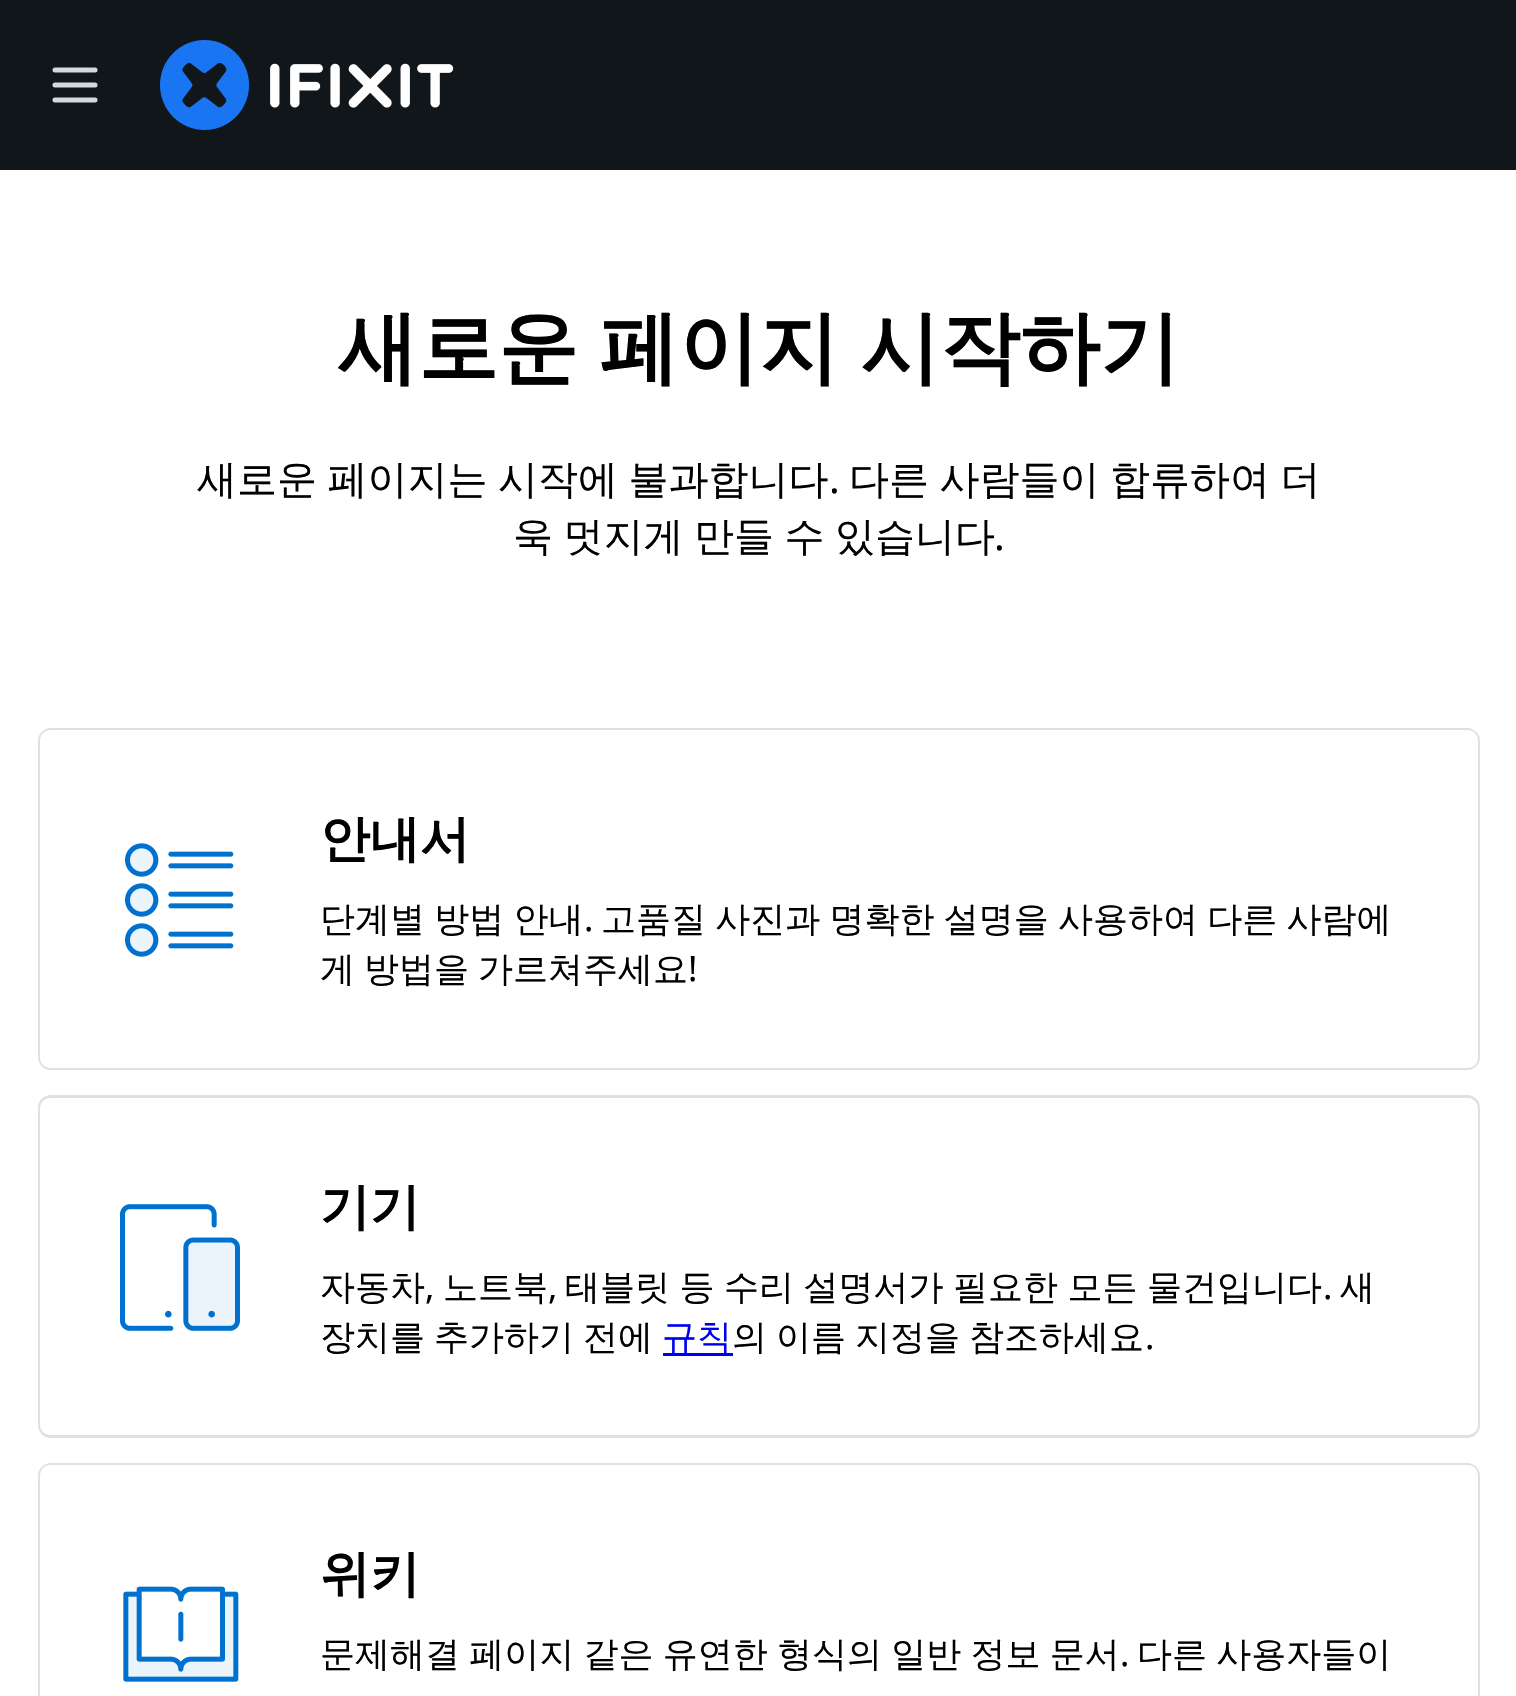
void draw(SkCanvas* canvas) {
	SkPaint fill;
	fill.setAntiAlias(true);
	auto makeFont = [&](const char* family, int weight, float size, bool italic = false) {
		SkFontStyle style(weight, SkFontStyle::kNormal_Width,
			italic ? SkFontStyle::kItalic_Slant : SkFontStyle::kUpright_Slant);
		SkFont result(fontMgr->matchFamilyStyle(family, style), size);
		result.setSubpixel(true);
		return result;
	};
	auto text = [&](const char* s, float x, float y, const SkFont& font) {
		canvas->drawString(s, x, y, font, fill);
	};
	auto spacedText = [&](const char* s, float x, float y, const SkFont& font, const SkPaint& ink, float letter, float word) {
		std::vector<SkGlyphID> glyphs(font.countText(s, strlen(s), SkTextEncoding::kUTF8));
		std::vector<float> xs(glyphs.size());
		font.textToGlyphs(s, strlen(s), SkTextEncoding::kUTF8, glyphs);
		font.getXPos(glyphs, xs, x);
		float extra = 0;
		for (size_t i = 0; i < glyphs.size(); i++) {
			xs[i] += extra;
			extra += letter + word * (glyphs[i] == font.unicharToGlyph(' '));
		}
		canvas->drawTextBlob(SkTextBlob::MakeFromPosHGlyphs(glyphs, xs, y, font), 0, 0, ink);
	};
	auto box = [&](float l, float t, float r, float b) {
		canvas->drawRect(SkRect::MakeLTRB(l, t, r, b), fill);
	};
	auto roundBox = [&](float l, float t, float r, float b, float radius) {
		canvas->drawRoundRect(SkRect::MakeLTRB(l, t, r, b), radius, radius, fill);
	};
	auto picture = [&](const char* path, float l, float t, float r, float b) {
		auto image = SkImages::DeferredFromEncodedData(SkData::MakeFromFileName(path));
		canvas->drawImageRect(image, SkRect::MakeLTRB(l, t, r, b), SkSamplingOptions());
	};
	canvas->clear(0xFFFFFFFF);
	fill.setColor(0xFF11161A);
	box(0, 0, 1516, 170);
	fill.setStyle(SkPaint::kStroke_Style);
	fill.setStrokeWidth(5);
	fill.setStrokeCap(SkPaint::kRound_Cap);
	fill.setStrokeJoin(SkPaint::kRound_Join);
	fill.setColor(0xFFD2DADF);
	canvas->drawPath(SkPathBuilder().moveTo(55, 85).lineTo(95, 85).moveTo(55, 70).lineTo(95, 70).moveTo(55, 100).lineTo(95, 100).detach(), fill);
	picture("image0.png", 160, 40, 454, 130);
	fill.setStrokeWidth(3);
	fill.setStrokeCap(SkPaint::kButt_Cap);
	fill.setStrokeJoin(SkPaint::kMiter_Join);
	fill.setColor(0xFFE0E0E0);
	canvas->drawRoundRect(SkRect::MakeLTRB(39.5f, 729.5f, 1478.5f, 1068.5f), 11.5f, 11.5f, fill);
	fill.setStyle(SkPaint::kFill_Style);
	fill.setColor(0xFFFFFFFF);
	roundBox(40, 730, 1478, 1068, 10);
	picture("image1.png", 125, 843, 234, 957);
	fill.setStyle(SkPaint::kStroke_Style);
	fill.setColor(0xFFE0E0E0);
	canvas->drawRoundRect(SkRect::MakeLTRB(39.5f, 1096.5f, 1478.5f, 1436.5f), 11.5f, 11.5f, fill);
	fill.setStyle(SkPaint::kFill_Style);
	fill.setColor(0xFFFFFFFF);
	roundBox(40, 1098, 1478, 1435, 10);
	picture("image2.png", 120, 1204, 240, 1331);
	fill.setColor(0xFF0000EE);
	box(663, 1353, 733, 1356);
	fill.setStyle(SkPaint::kStroke_Style);
	fill.setColor(0xFFE0E0E0);
	canvas->drawRoundRect(SkRect::MakeLTRB(39.5f, 1464.5f, 1478.5f, 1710.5f), 11.5f, 11.5f, fill);
	fill.setStyle(SkPaint::kFill_Style);
	fill.setColor(0xFFFFFFFF);
	roundBox(40, 1465, 1478, 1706, 10);
	picture("image3.png", 123, 1586, 239, 1682);
	auto font1 = makeFont("WenQuanYi Zen Hei", 700, 80);
	fill.setColor(0xFF000000);
	spacedText("새로운 페이지 시작하기", 338, 375, font1, fill, 0, -3);
	auto font2 = makeFont("WenQuanYi Zen Hei", 500, 40);
	spacedText("새로운 페이지는 시작에 불과합니다", 197, 493, font2, fill, 0, -1.5f);
	auto font3 = makeFont("Noto Sans", 400, 40);
	text(".", 829, 493, font3);
	spacedText("다른 사람들이 합류하여 더", 849, 493, font2, fill, 0, -1.5f);
	spacedText("욱 멋지게 만들 수 있습니다", 513, 550, font2, fill, 0, -1.5f);
	text(".", 994, 550, font3);
	auto font4 = makeFont("WenQuanYi Zen Hei", 700, 50);
	text("안내서", 320, 856, font4);
	auto font5 = makeFont("WenQuanYi Zen Hei", 500, 35);
	spacedText("단계별 방법 안내", 320, 931, font5, fill, 0, -1.25f);
	auto font6 = makeFont("Noto Sans", 400, 35);
	text(".", 584, 931, font6);
	spacedText("고품질 사진과 명확한 설명을 사용하여 다른 사람에", 601, 931, font5, fill, 0, -1.25f);
	spacedText("게 방법을 가르쳐주세요", 320, 981, font5, fill, 0, -1.5f);
	text("!", 688, 981, font6);
	text("기기", 320, 1224, font4);
	text("자동차", 320, 1299, font5);
	text(",", 425, 1299, font6);
	text("노트북", 443, 1299, font5);
	text(",", 548, 1299, font6);
	spacedText("태블릿 등 수리 설명서가 필요한 모든 물건입니다", 565, 1299, font5, fill, 0, -1);
	text(".", 1323, 1299, font6);
	text("새", 1340, 1299, font5);
	spacedText("장치를 추가하기 전에", 320, 1349, font5, fill, 0, -1.5f);
	fill.setColor(0xFF0000EE);
	text("규칙", 662, 1349, font5);
	fill.setColor(0xFF000000);
	spacedText("의 이름 지정을 참조하세요", 732, 1349, font5, fill, 0, -1.5f);
	text(".", 1145, 1349, font6);
	text("위키", 320, 1591, font4);
	spacedText("문제해결 페이지 같은 유연한 형식의 일반 정보 문서", 320, 1666, font5, fill, 0, -1.25f);
	text(".", 1120, 1666, font6);
	spacedText("다른 사용자들이", 1137, 1666, font5, fill, 0, -1.25f);
}
